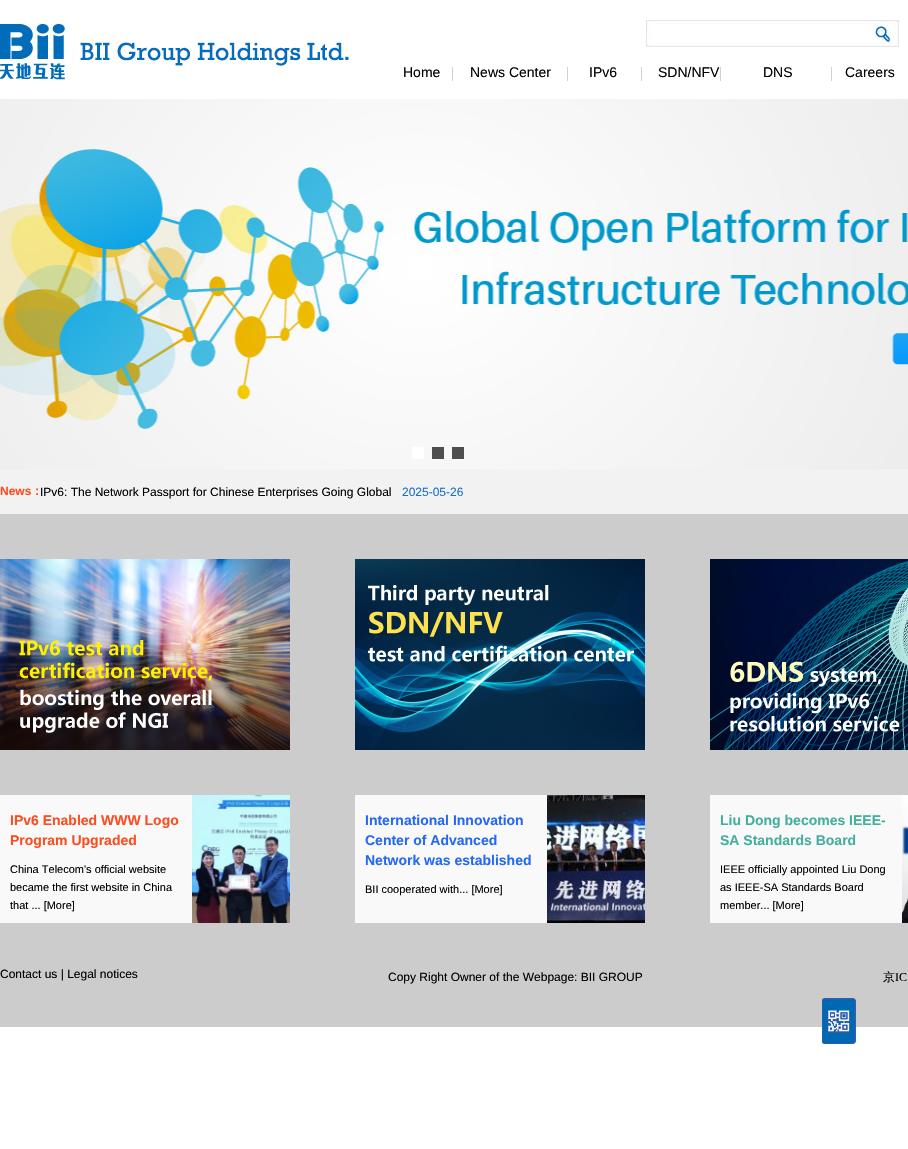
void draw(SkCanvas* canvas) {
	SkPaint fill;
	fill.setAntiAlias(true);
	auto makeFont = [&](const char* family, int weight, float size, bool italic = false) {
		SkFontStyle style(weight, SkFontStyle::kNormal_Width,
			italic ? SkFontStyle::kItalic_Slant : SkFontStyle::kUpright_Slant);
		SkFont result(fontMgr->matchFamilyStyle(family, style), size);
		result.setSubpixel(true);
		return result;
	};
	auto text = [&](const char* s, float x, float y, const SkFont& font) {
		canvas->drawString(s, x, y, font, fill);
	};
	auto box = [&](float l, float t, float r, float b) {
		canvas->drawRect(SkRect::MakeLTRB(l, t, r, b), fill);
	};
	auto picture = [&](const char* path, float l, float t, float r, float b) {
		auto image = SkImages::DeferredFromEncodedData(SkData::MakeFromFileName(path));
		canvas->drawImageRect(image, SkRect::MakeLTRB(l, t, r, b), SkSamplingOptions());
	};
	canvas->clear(0xFFFFFFFF);
	picture("image0.png", 0, 24, 349, 80);
	picture("image1.png", 646, 20, 899, 47);
	fill.setColor(0xFFFFFFFF);
	box(650, 24, 873, 36);
	picture("image2.png", 873, 24, 895, 44);
	picture("image3.png", 452, 67, 832, 81);
	picture("image4.png", 0, 99, 908, 469);
	box(412, 447, 424, 459);
	fill.setColor(0xFF4E4E50);
	box(432, 447, 444, 459);
	box(452, 447, 464, 459);
	fill.setColor(0xFFF2F2F2);
	box(0, 469, 908, 514);
	fill.setColor(0xFFCCCCCC);
	box(0, 514, 908, 1027);
	picture("image5.png", 0, 559, 290, 750);
	picture("image6.png", 355, 559, 645, 750);
	picture("image7.png", 710, 559, 908, 750);
	fill.setColor(0xFFF9F9F9);
	box(0, 795, 192, 923);
	picture("image8.png", 192, 795, 290, 923);
	box(355, 795, 547, 923);
	picture("image9.png", 547, 795, 645, 923);
	box(710, 795, 902, 923);
	picture("image10.png", 902, 795, 908, 923);
	picture("image11.png", 822, 998, 856, 1044);
	auto font1 = makeFont("Liberation Sans", 400, 14);
	fill.setColor(0xFF000000);
	text("Home", 403, 77, font1);
	text("News Center", 470, 77, font1);
	text("IPv6", 589, 77, font1);
	text("SDN/NFV", 658, 77, font1);
	text("DNS", 763, 77, font1);
	text("Careers", 845, 77, font1);
	auto font2 = makeFont("Liberation Sans", 700, 12);
	fill.setColor(0xFFFD4C20);
	text("News", 0, 495, font2);
	auto font3 = makeFont("WenQuanYi Zen Hei", 700, 12);
	text("：", 31, 495, font3);
	auto font4 = makeFont("Liberation Sans", 400, 12);
	fill.setColor(0xFF000000);
	text("IPv6: The Network Passport for Chinese Enterprises Going Global", 40, 496, font4);
	fill.setColor(0xFF186FC9);
	text("2025-05-26", 402, 496, font4);
	auto font5 = makeFont("Liberation Sans", 700, 14);
	fill.setColor(0xFFFD4C20);
	text("IPv6 Enabled WWW Logo", 10, 825, font5);
	text("Program Upgraded", 10, 845, font5);
	auto font6 = makeFont("Liberation Sans", 400, 11);
	fill.setColor(0xFF000000);
	text("China Telecom's official website", 10, 873, font6);
	text("became the first website in China", 10, 891, font6);
	text("that ... [More]", 10, 909, font6);
	fill.setColor(0xFF2468F7);
	text("International Innovation", 365, 825, font5);
	text("Center of Advanced", 365, 845, font5);
	text("Network was established", 365, 865, font5);
	fill.setColor(0xFF000000);
	text("BII cooperated with... [More]", 365, 893, font6);
	fill.setColor(0xFF43AF9F);
	text("Liu Dong becomes IEEE-", 720, 825, font5);
	text("SA Standards Board", 720, 845, font5);
	fill.setColor(0xFF000000);
	text("IEEE officially appointed Liu Dong", 720, 873, font6);
	text("as IEEE-SA Standards Board", 720, 891, font6);
	text("member... [More]", 720, 909, font6);
	text("Contact us | Legal notices", 0, 978, font4);
	text("Copy Right Owner of the Webpage: BII GROUP", 388, 981, font4);
	auto font7 = makeFont("WenQuanYi Zen Hei", 500, 12);
	text("京", 883, 981, font7);
	auto font8 = makeFont("Liberation Serif", 400, 12);
	text("IC", 895, 981, font8);
}
